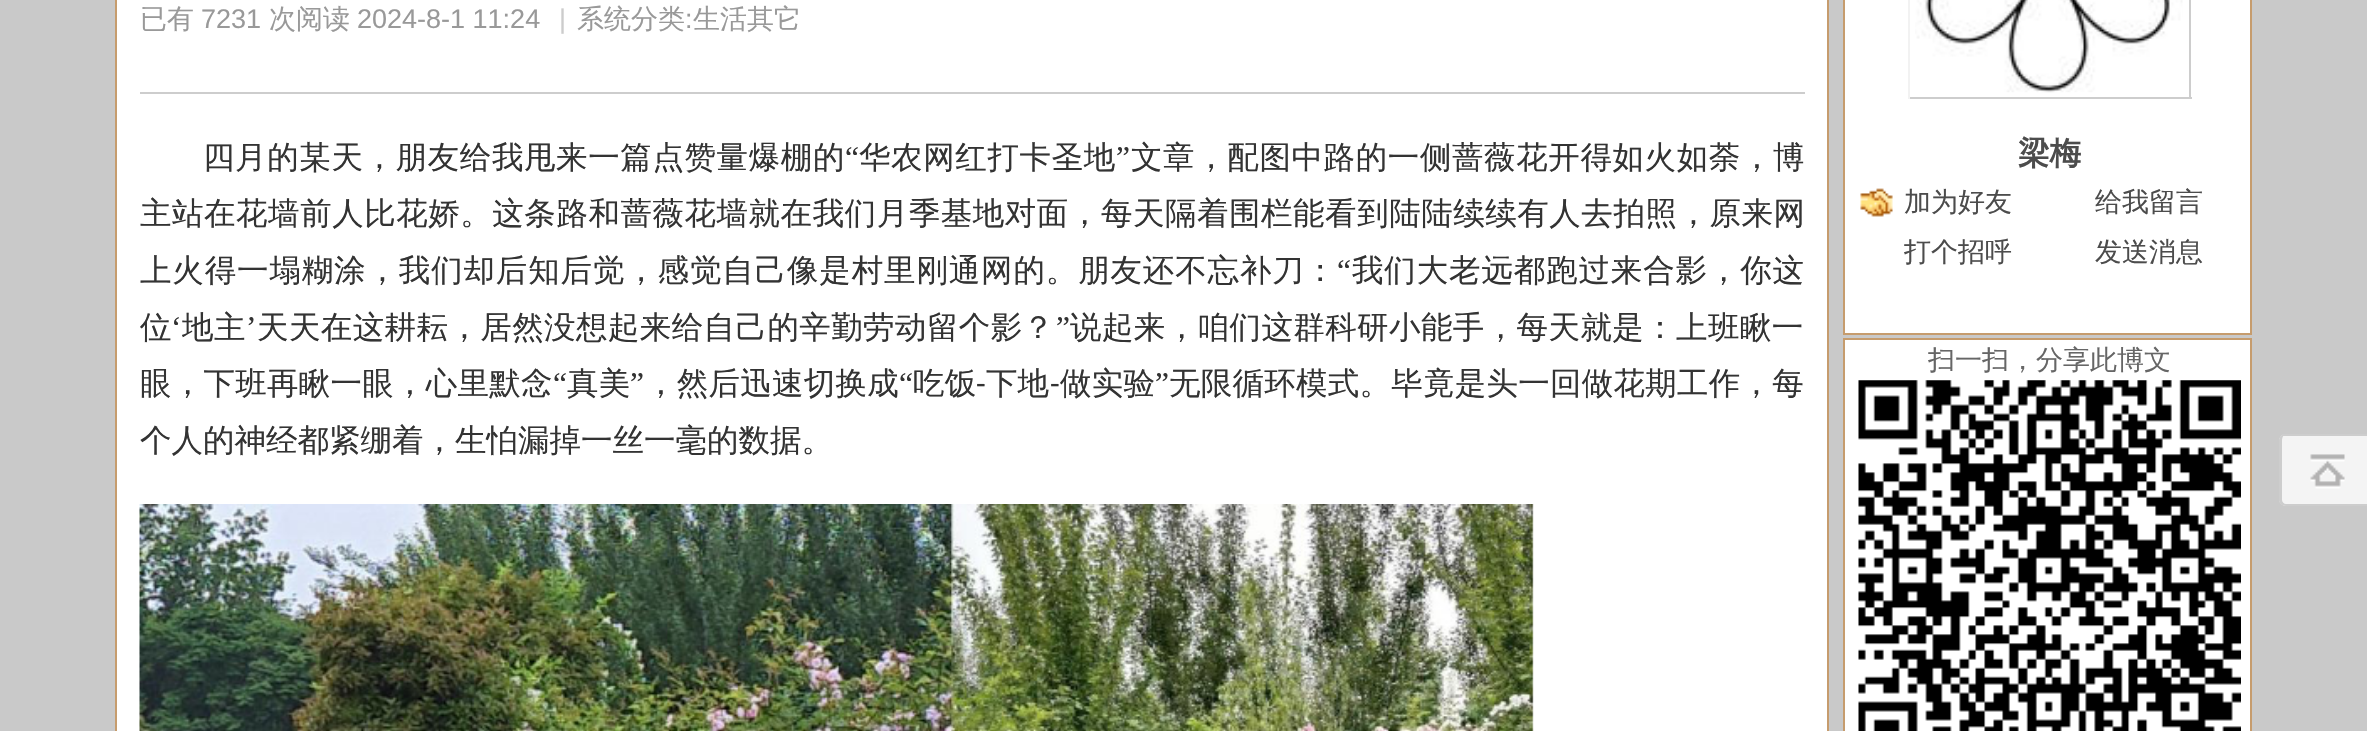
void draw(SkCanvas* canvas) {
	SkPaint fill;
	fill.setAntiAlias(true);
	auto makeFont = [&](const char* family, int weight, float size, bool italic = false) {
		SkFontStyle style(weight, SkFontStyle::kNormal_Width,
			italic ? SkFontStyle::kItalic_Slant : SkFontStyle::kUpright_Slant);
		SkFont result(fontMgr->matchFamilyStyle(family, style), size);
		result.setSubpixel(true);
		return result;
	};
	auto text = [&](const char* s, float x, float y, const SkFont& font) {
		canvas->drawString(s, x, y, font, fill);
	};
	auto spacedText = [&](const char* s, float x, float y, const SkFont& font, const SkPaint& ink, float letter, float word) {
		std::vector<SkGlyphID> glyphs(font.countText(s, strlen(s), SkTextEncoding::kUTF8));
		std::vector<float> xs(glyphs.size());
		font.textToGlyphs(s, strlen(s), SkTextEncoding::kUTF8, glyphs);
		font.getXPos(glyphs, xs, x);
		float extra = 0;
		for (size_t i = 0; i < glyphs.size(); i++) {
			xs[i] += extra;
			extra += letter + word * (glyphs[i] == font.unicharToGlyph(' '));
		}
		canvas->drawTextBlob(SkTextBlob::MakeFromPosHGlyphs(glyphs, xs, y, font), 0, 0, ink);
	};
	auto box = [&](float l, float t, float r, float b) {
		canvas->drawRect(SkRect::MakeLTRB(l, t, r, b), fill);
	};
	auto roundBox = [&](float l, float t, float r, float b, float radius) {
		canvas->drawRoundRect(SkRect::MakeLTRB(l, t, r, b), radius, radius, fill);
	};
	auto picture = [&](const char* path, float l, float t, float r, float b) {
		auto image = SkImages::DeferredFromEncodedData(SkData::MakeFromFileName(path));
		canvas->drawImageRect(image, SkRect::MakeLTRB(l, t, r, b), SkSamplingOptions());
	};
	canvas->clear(0xFFC9C9C9);
	fill.setColor(0xFFFFFFFF);
	canvas->drawRect(SkRect::MakeLTRB(116, -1, 1828, 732), fill);
	fill.setStyle(SkPaint::kStroke_Style);
	fill.setStrokeWidth(2);
	fill.setColor(0xFFC69C6D);
	canvas->drawRect(SkRect::MakeLTRB(116, -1, 1828, 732), fill);
	fill.setStyle(SkPaint::kFill_Style);
	fill.setColor(0xFFCDCDCD);
	box(140, 92, 1805, 94);
	picture("image0.png", 139, 504, 1534, 731);
	fill.setColor(0xFFFFFFFF);
	canvas->drawRect(SkRect::MakeLTRB(1844, -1, 2251, 334), fill);
	fill.setStyle(SkPaint::kStroke_Style);
	fill.setColor(0xFFC69C6D);
	canvas->drawRect(SkRect::MakeLTRB(1844, -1, 2251, 334), fill);
	fill.setStyle(SkPaint::kFill_Style);
	fill.setColor(0xFFCDCDCD);
	box(2189, 0, 2191, 99);
	box(1908, 97, 2192, 99);
	fill.setColor(0xFFF2F2F2);
	box(1908, 0, 1910, 99);
	picture("image1.png", 1915, 0, 2183, 93);
	picture("image2.png", 1860, 188, 1893, 217);
	fill.setColor(0xFFFFFFFF);
	canvas->drawRect(SkRect::MakeLTRB(1844, 339, 2251, 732), fill);
	fill.setStyle(SkPaint::kStroke_Style);
	fill.setColor(0xFFC69C6D);
	canvas->drawRect(SkRect::MakeLTRB(1844, 339, 2251, 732), fill);
	picture("image3.png", 1858, 380, 2241, 731);
	fill.setStyle(SkPaint::kFill_Style);
	fill.setColor(0xFFF4F4F4);
	roundBox(2279, 434, 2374, 506, 7);
	fill.setColor(0xFFCDCDCD);
	canvas->drawPath(SkPathBuilder(SkPathFillType::kEvenOdd).moveTo(2286, 434).lineTo(2367, 434).cubicTo(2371, 434, 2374, 437, 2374, 441).lineTo(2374, 500).cubicTo(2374, 503, 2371, 506, 2367, 506).lineTo(2286, 506).cubicTo(2282, 506, 2279, 503, 2279, 500).lineTo(2279, 441).cubicTo(2279, 437, 2282, 434, 2286, 434).close().moveTo(2286, 434).lineTo(2367, 434).cubicTo(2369, 434, 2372, 437, 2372, 441).lineTo(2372, 500).cubicTo(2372, 502, 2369, 504, 2367, 504).lineTo(2286, 504).cubicTo(2284, 504, 2282, 502, 2282, 500).lineTo(2282, 441).cubicTo(2282, 437, 2284, 434, 2286, 434).close().detach(), fill);
	picture("image4.png", 2310, 454, 2345, 489);
	box(2282, 434, 2367, 436);
	auto font1 = makeFont("WenQuanYi Zen Hei", 500, 27);
	fill.setColor(0xFF999999);
	text("已有", 140, 28, font1);
	auto font2 = makeFont("Liberation Sans", 400, 27);
	text("7231", 201, 28, font2);
	text("次阅读", 269, 28, font1);
	text("2024-8-1 11:24", 357, 28, font2);
	fill.setColor(0xFFCCCCCC);
	text("|", 559, 28, font2);
	fill.setColor(0xFF999999);
	text("系统分类", 577, 28, font1);
	text(":", 685, 28, font2);
	text("生活其它", 693, 28, font1);
	auto font3 = makeFont("WenQuanYi Zen Hei", 500, 31.5f);
	fill.setColor(0xFF333333);
	spacedText("四月的某天，朋友给我甩来一篇点赞量爆棚的", 203, 168, font3, fill, 0.6f, 0);
	auto font4 = makeFont("Liberation Serif", 400, 31.5f);
	spacedText("“", 845, 168, font4, fill, 0.6f, 0);
	spacedText("华农网红打卡圣地", 859, 168, font3, fill, 0.6f, 0);
	spacedText("”", 1116, 168, font4, fill, 0.6f, 0);
	spacedText("文章，配图中路的一侧蔷薇花开得如火如荼，博", 1131, 168, font3, fill, 0.6f, 0);
	spacedText("主站在花墙前人比花娇。这条路和蔷薇花墙就在我们月季基地对面，每天隔着围栏能看到陆陆续续有人去拍照，原来网", 140, 224, font3, fill, 0.53f, 0);
	spacedText("上火得一塌糊涂，我们却后知后觉，感觉自己像是村里刚通网的。朋友还不忘补刀：", 140, 281, font3, fill, 0.85f, 0);
	spacedText("“", 1337, 281, font4, fill, 0.85f, 0);
	spacedText("我们大老远都跑过来合影，你这", 1352, 281, font3, fill, 0.85f, 0);
	spacedText("位", 140, 338, font3, fill, 0.4f, 0);
	spacedText("‘", 171, 338, font4, fill, 0.4f, 0);
	spacedText("地主", 182, 338, font3, fill, 0.4f, 0);
	spacedText("’", 246, 338, font4, fill, 0.4f, 0);
	spacedText("天天在这耕耘，居然没想起来给自己的辛勤劳动留个影？", 257, 338, font3, fill, 0.4f, 0);
	spacedText("”", 1056, 338, font4, fill, 0.4f, 0);
	spacedText("说起来，咱们这群科研小能手，每天就是：上班瞅一", 1070, 338, font3, fill, 0.4f, 0);
	spacedText("眼，下班再瞅一眼，心里默念", 140, 394, font3, fill, 0.25f, 0);
	spacedText("“", 553, 394, font4, fill, 0.25f, 0);
	spacedText("真美", 567, 394, font3, fill, 0.25f, 0);
	spacedText("”", 630, 394, font4, fill, 0.25f, 0);
	spacedText("，然后迅速切换成", 645, 394, font3, fill, 0.25f, 0);
	spacedText("“", 899, 394, font4, fill, 0.25f, 0);
	spacedText("吃饭", 913, 394, font3, fill, 0.25f, 0);
	text("下地", 986, 394, font3);
	spacedText("做实验", 1060, 394, font3, fill, 0.25f, 0);
	spacedText("”", 1155, 394, font4, fill, 0.25f, 0);
	spacedText("无限循环模式。毕竟是头一回做花期工作，每", 1169, 394, font3, fill, 0.25f, 0);
	auto font5 = makeFont("Carlito", 400, 31.5f);
	text("-", 976, 394, font5);
	text("-", 1050, 394, font5);
	text("个人的神经都紧绷着，生怕漏掉一丝一毫的数据。", 140, 451, font3);
	auto font6 = makeFont("WenQuanYi Zen Hei", 700, 31.5f);
	fill.setColor(0xFF4C4C4C);
	text("梁梅", 2018, 164, font6);
	text("加为好友", 1904, 211, font1);
	text("给我留言", 2095, 211, font1);
	text("打个招呼", 1904, 261, font1);
	text("发送消息", 2095, 261, font1);
	fill.setColor(0xFF666666);
	text("扫一扫，分享此博文", 1928, 369, font1);
}
